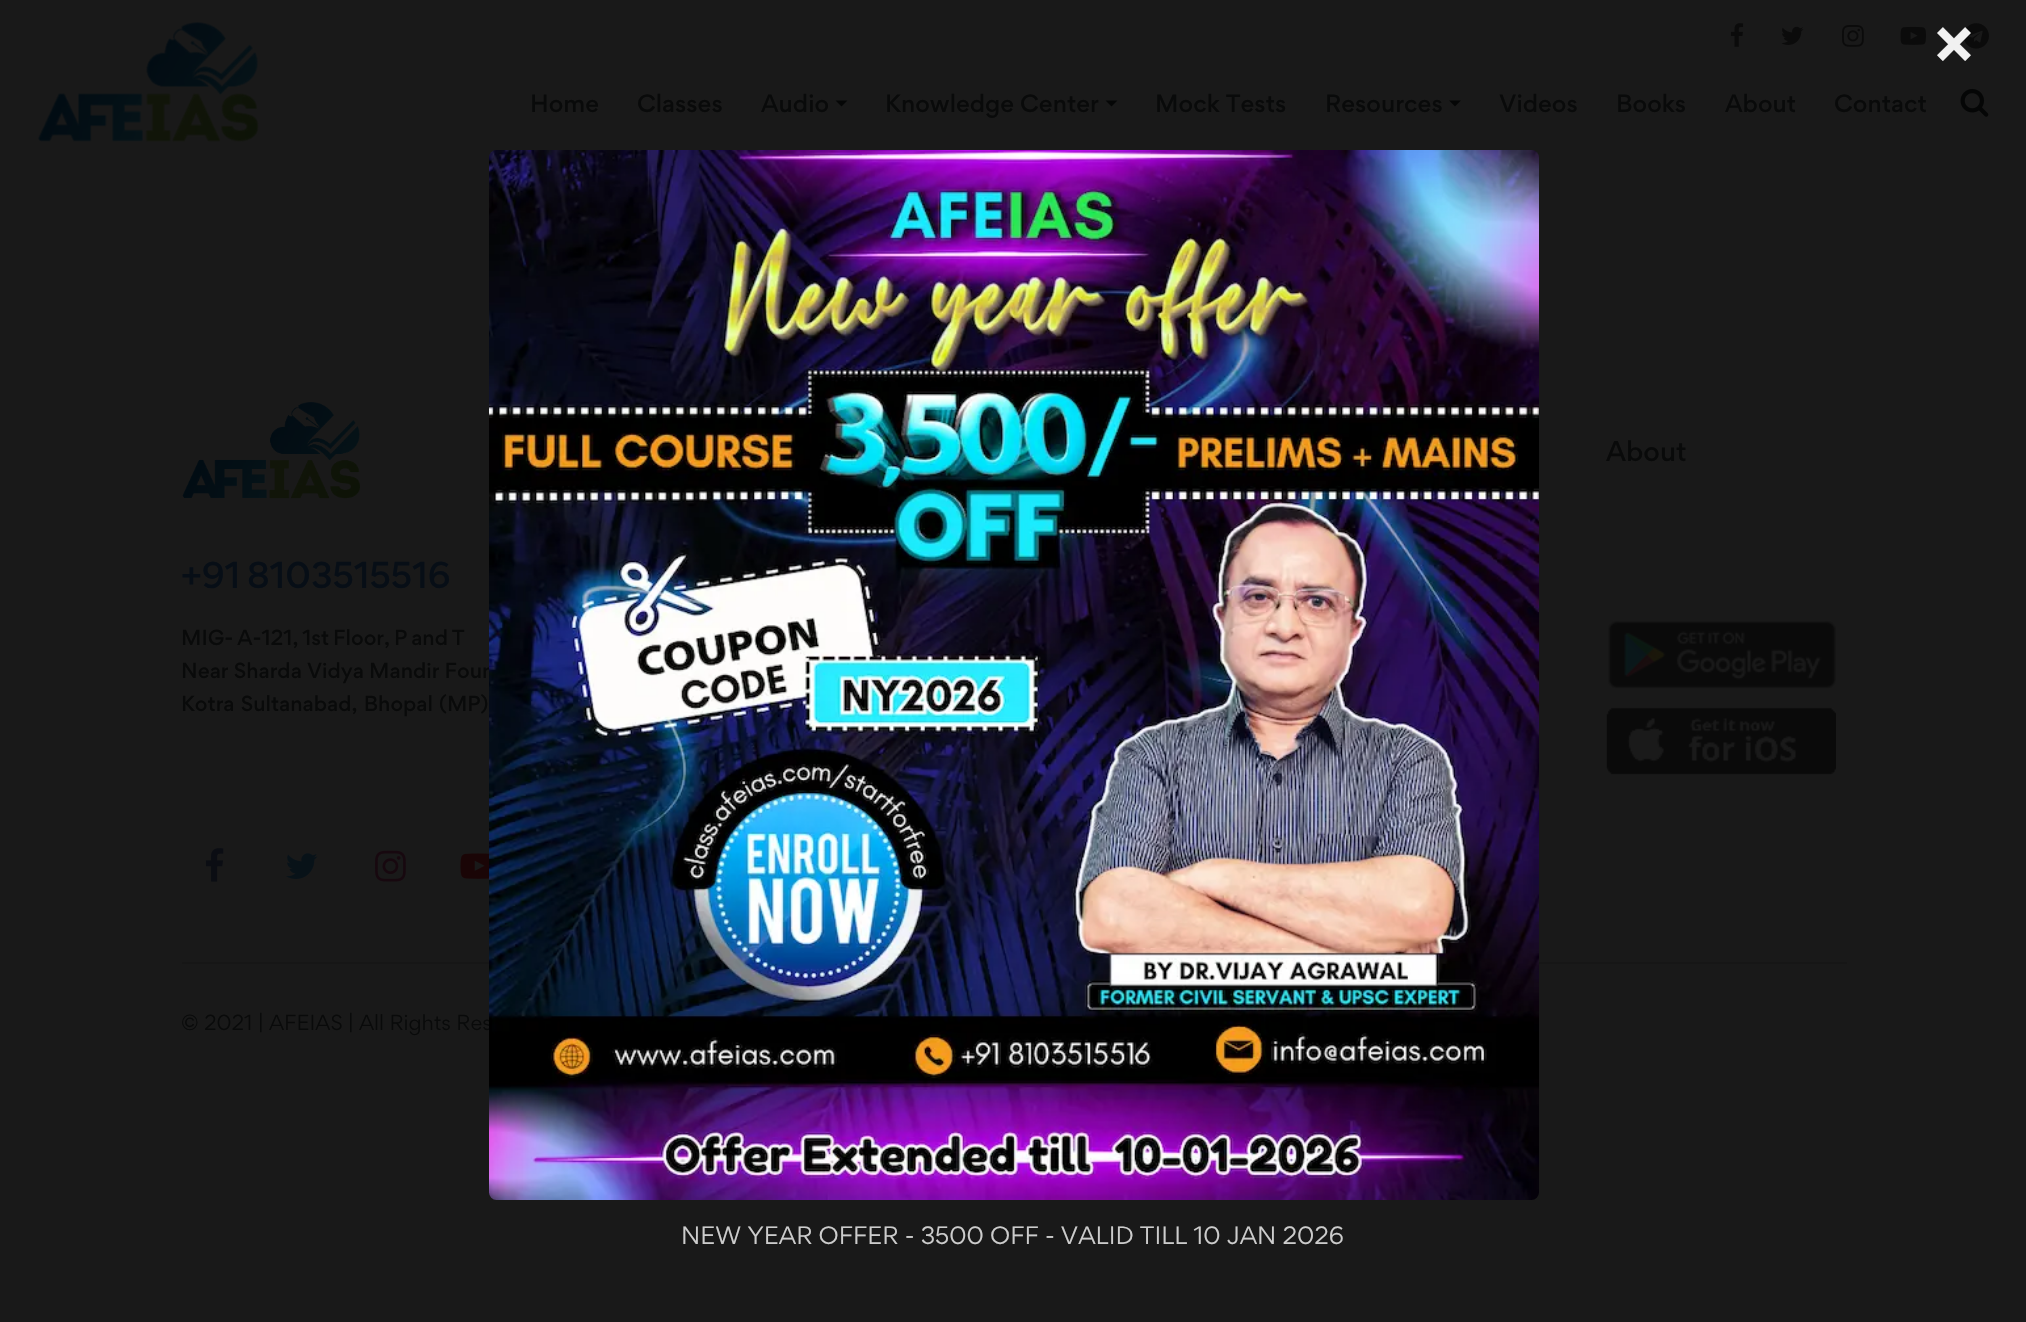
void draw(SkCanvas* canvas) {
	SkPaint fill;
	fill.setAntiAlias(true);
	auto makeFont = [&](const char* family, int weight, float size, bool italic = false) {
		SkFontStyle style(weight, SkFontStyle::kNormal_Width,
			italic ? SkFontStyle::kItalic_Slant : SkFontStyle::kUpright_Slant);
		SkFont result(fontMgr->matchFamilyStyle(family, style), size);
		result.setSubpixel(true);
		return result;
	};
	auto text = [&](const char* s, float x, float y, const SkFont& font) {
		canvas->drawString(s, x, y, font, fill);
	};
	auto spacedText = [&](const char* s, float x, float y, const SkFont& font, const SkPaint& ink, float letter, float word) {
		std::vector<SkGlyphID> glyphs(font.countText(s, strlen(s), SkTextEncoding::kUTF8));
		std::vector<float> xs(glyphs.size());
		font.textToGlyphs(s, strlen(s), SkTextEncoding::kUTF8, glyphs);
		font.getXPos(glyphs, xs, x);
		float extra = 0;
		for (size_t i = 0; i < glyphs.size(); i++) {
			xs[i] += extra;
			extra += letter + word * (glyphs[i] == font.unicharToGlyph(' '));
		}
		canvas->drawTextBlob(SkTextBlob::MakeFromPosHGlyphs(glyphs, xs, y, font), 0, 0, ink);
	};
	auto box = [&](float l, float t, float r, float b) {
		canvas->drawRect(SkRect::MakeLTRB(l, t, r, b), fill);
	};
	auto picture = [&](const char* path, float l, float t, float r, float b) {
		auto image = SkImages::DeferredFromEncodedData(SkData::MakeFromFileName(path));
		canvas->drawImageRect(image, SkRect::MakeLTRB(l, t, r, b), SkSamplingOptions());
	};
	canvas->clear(0xFF191919);
	picture("image1.png", 38, 22, 259, 142);
	picture("image2.png", 1730, 23, 1744, 47);
	picture("image3.png", 1781, 26, 1804, 45);
	picture("image4.png", 1842, 25, 1864, 47);
	picture("image5.png", 1900, 26, 1926, 45);
	picture("image6.png", 1963, 23, 1989, 49);
	fill.setColor(0xFF050606);
	canvas->drawPath(SkPathBuilder().moveTo(835.5f, 100.5f).lineTo(847.5f, 100.5f).lineTo(841.5f, 106.5f).close().detach(), fill);
	canvas->drawPath(SkPathBuilder().moveTo(1105.5f, 100.5f).lineTo(1117.5f, 100.5f).lineTo(1111.5f, 106.5f).close().detach(), fill);
	canvas->drawPath(SkPathBuilder().moveTo(1449, 100.5f).lineTo(1461, 100.5f).lineTo(1455, 106.5f).close().detach(), fill);
	picture("image7.png", 1960, 88, 1989, 117);
	picture("image8.png", 1607, 620, 1836, 689);
	picture("image9.png", 1606, 707, 1836, 775);
	picture("image10.png", 182, 402, 360, 499);
	picture("image11.png", 205, 848, 224, 882);
	picture("image12.png", 286, 853, 318, 879);
	picture("image13.png", 375, 850, 406, 882);
	picture("image14.png", 460, 853, 489, 879);
	fill.setColor(0xFF161616);
	box(182, 962, 1847, 964);
	auto font1 = makeFont("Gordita", 700, 60);
	fill.setColor(0xFFF1F1F1);
	text("×", 1934, 66, font1);
	auto font2 = makeFont("Gordita", 400, 22.5f);
	fill.setColor(0xFFCCCCCC);
	spacedText("NEW YEAR OFFER - 3500 OFF - VALID TILL 10 JAN 2026", 681, 1244, font2, fill, 0, -0.1f);
	auto font3 = makeFont("Gordita", 500, 22.5f);
	fill.setColor(0xFF090A0A);
	text("Home", 530, 112, font3);
	text("Classes", 637, 112, font3);
	text("Audio", 761, 112, font3);
	text("Knowledge Center", 885, 112, font3);
	text("Mock Tests", 1155, 112, font3);
	text("Resources", 1325, 112, font3);
	text("Videos", 1499, 112, font3);
	text("Books", 1616, 112, font3);
	text("About", 1725, 112, font3);
	text("Contact", 1834, 112, font3);
	auto font4 = makeFont("Gordita", 500, 25.5f);
	text("About", 1606, 461, font4);
	auto font5 = makeFont("Gordita", 500, 33.5f);
	fill.setColor(0xFF070E16);
	spacedText("+91 8103515516", 181, 588, font5, fill, 0, -2);
	auto font6 = makeFont("Gordita", 500, 19.5f);
	fill.setColor(0xFF090A0A);
	spacedText("MIG- A-121, 1st Floor, P and T", 181, 645, font6, fill, 0, -1.25f);
	text("Near Sharda Vidya Mandir Foun", 181, 678, font6);
	spacedText("Kotra Sultanabad, Bhopal (MP)", 181, 711, font6, fill, 0, 1);
	auto font7 = makeFont("Gordita", 400, 19.5f);
	text("© 2021 |", 181, 1030, font7);
	text("AFEIAS", 269, 1030, font7);
	text("| All Rights Res", 348, 1030, font7);
	picture("image0.png", 489, 150, 1539, 1200);
}
